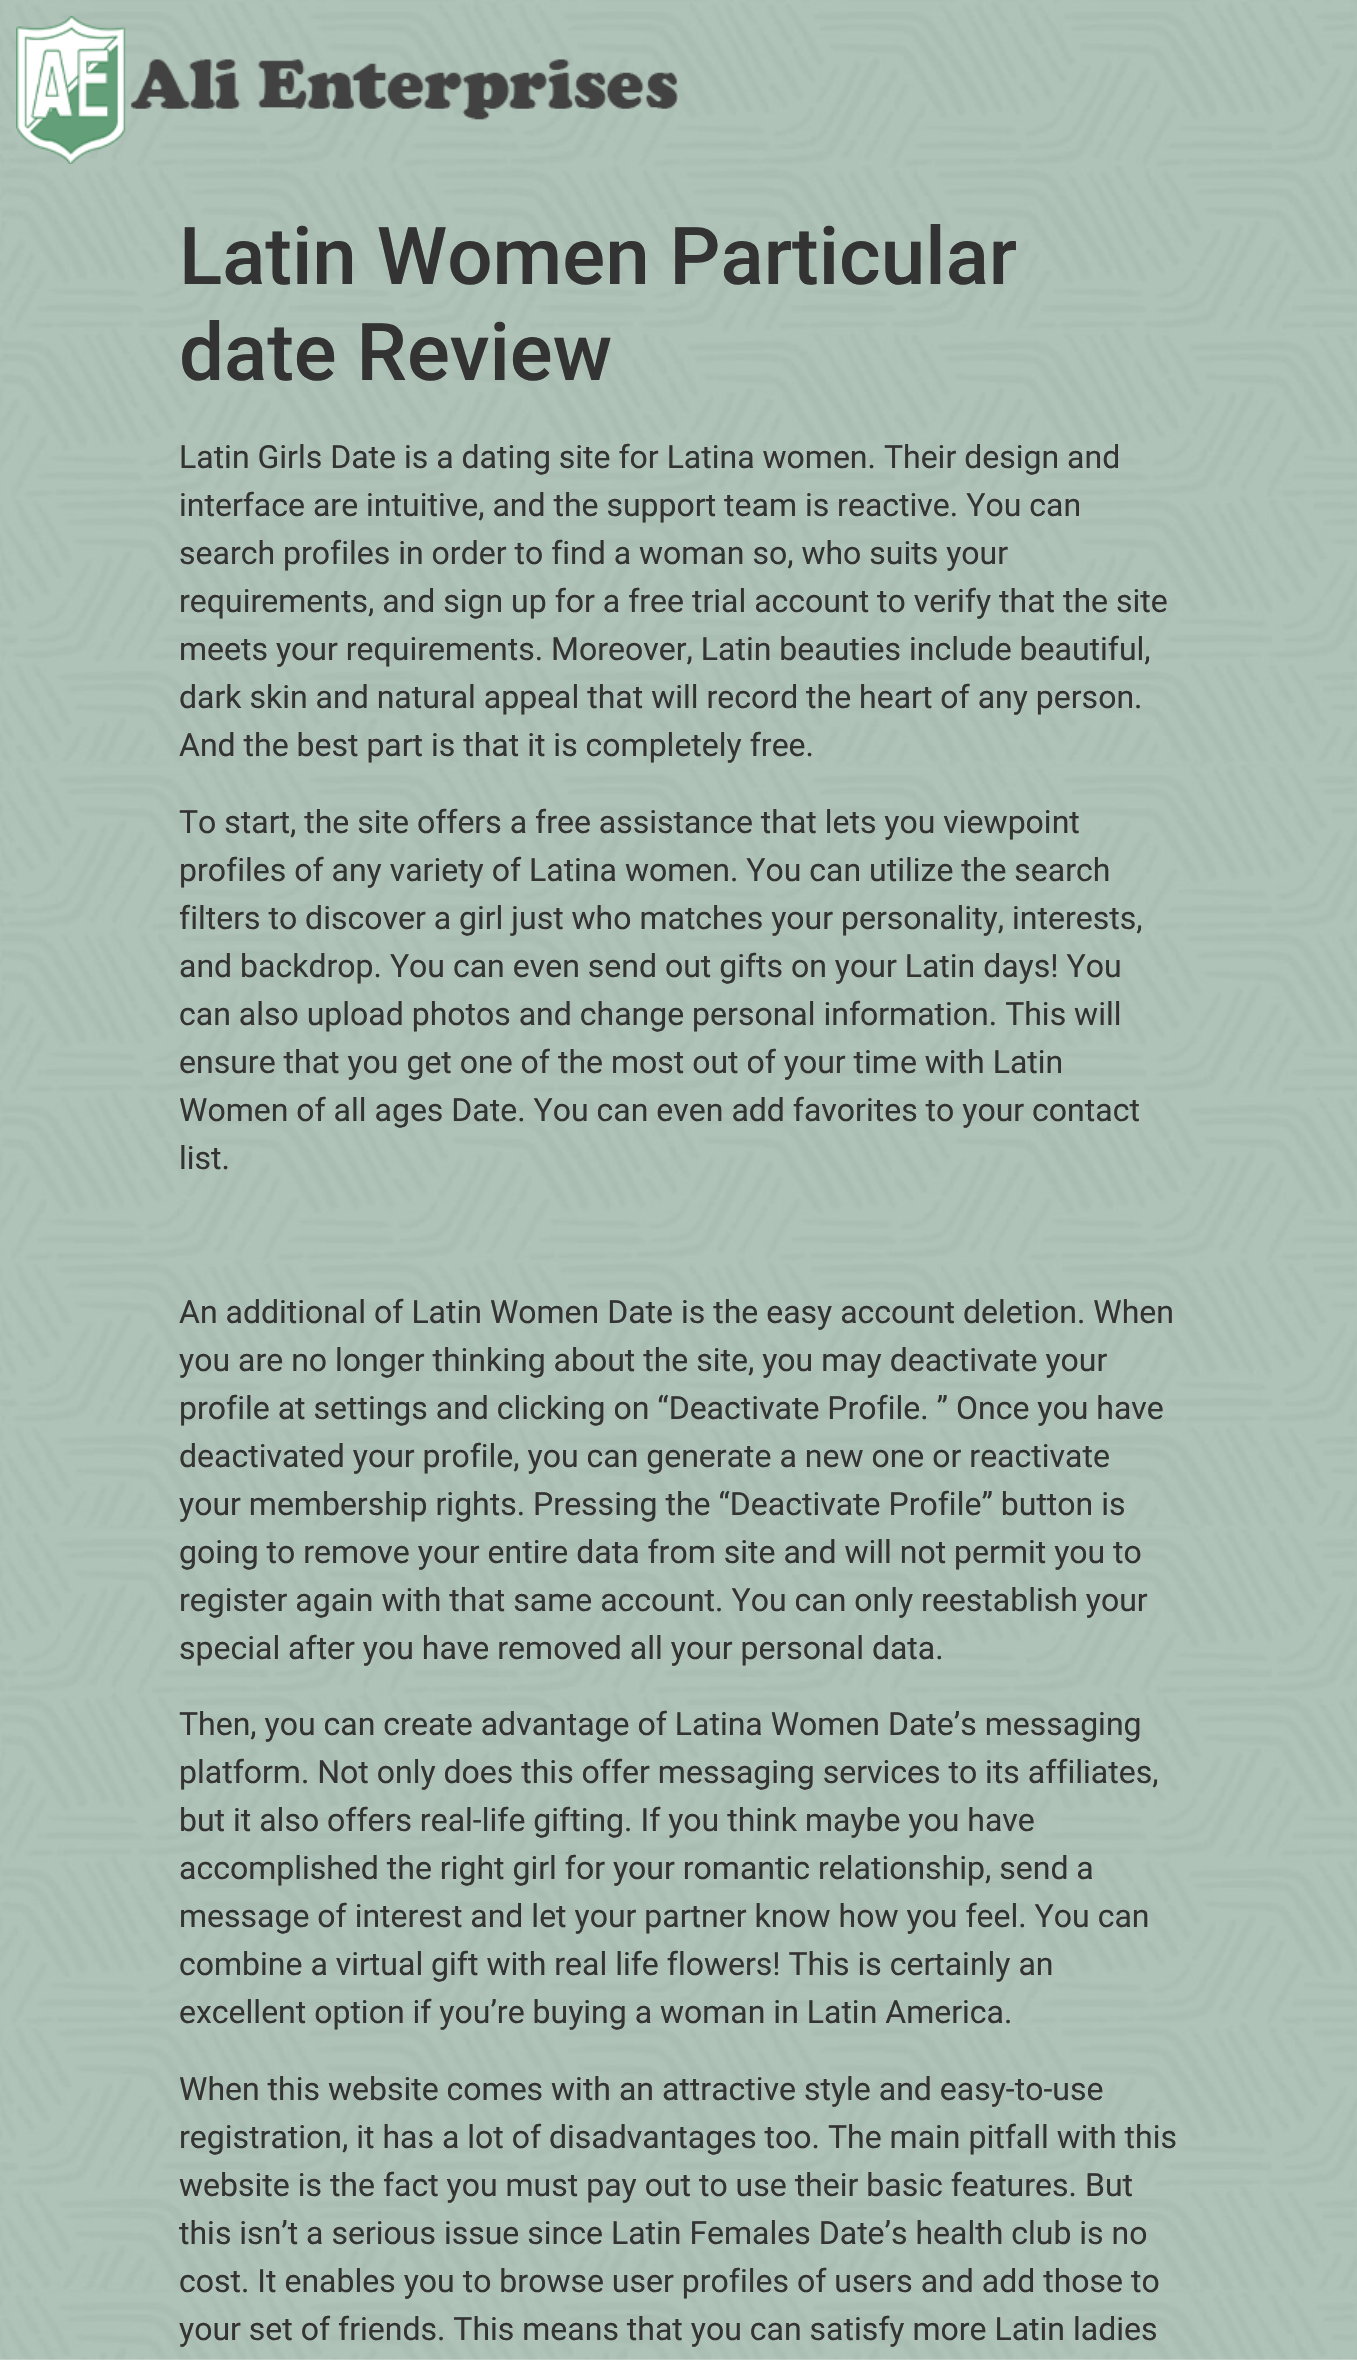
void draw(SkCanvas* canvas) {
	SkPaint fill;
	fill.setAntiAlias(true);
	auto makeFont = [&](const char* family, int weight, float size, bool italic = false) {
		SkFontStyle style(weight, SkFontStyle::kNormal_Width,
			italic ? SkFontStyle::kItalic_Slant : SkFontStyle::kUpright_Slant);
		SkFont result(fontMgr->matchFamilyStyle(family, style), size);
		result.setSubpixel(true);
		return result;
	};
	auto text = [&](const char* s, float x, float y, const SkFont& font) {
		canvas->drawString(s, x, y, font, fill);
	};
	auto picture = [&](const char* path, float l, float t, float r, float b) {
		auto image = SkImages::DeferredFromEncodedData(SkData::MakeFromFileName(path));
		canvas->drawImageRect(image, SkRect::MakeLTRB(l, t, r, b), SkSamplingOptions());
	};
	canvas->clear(0xFFFFFFFF);
	picture("image0.png", 0, 0, 1357, 2360);
	picture("image1.png", 16, 16, 678, 164);
	auto font1 = makeFont("Roboto", 500, 80);
	fill.setColor(0xFF333333);
	text("Latin Women Particular", 179, 284, font1);
	text("date Review", 179, 380, font1);
	auto font2 = makeFont("Roboto", 400, 32);
	text("Latin Girls Date is a dating site for Latina women. Their design and", 179, 468, font2);
	text("interface are intuitive, and the support team is reactive. You can", 179, 516, font2);
	text("search profiles in order to find a woman so, who suits your", 179, 564, font2);
	text("requirements, and sign up for a free trial account to verify that the site", 179, 612, font2);
	text("meets your requirements. Moreover, Latin beauties include beautiful,", 179, 660, font2);
	text("dark skin and natural appeal that will record the heart of any person.", 179, 708, font2);
	text("And the best part is that it is completely free.", 179, 756, font2);
	text("To start, the site offers a free assistance that lets you viewpoint", 179, 833, font2);
	text("profiles of any variety of Latina women. You can utilize the search", 179, 881, font2);
	text("filters to discover a girl just who matches your personality, interests,", 179, 929, font2);
	text("and backdrop. You can even send out gifts on your Latin days! You", 179, 977, font2);
	text("can also upload photos and change personal information. This will", 179, 1025, font2);
	text("ensure that you get one of the most out of your time with Latin", 179, 1073, font2);
	text("Women of all ages Date. You can even add favorites to your contact", 179, 1121, font2);
	text("list.", 179, 1169, font2);
	text("An additional of Latin Women Date is the easy account deletion. When", 179, 1323, font2);
	text("you are no longer thinking about the site, you may deactivate your", 179, 1371, font2);
	text("profile at settings and clicking on “Deactivate Profile. ” Once you have", 179, 1419, font2);
	text("deactivated your profile, you can generate a new one or reactivate", 179, 1467, font2);
	text("your membership rights. Pressing the “Deactivate Profile” button is", 179, 1515, font2);
	text("going to remove your entire data from site and will not permit you to", 179, 1563, font2);
	text("register again with that same account. You can only reestablish your", 179, 1611, font2);
	text("special after you have removed all your personal data.", 179, 1659, font2);
	text("Then, you can create advantage of Latina Women Date’s messaging", 179, 1735, font2);
	text("platform. Not only does this offer messaging services to its affiliates,", 179, 1783, font2);
	text("but it also offers real-life gifting. If you think maybe you have", 179, 1831, font2);
	text("accomplished the right girl for your romantic relationship, send a", 179, 1879, font2);
	text("message of interest and let your partner know how you feel. You can", 179, 1927, font2);
	text("combine a virtual gift with real life flowers! This is certainly an", 179, 1975, font2);
	text("excellent option if you’re buying a woman in Latin America.", 179, 2023, font2);
	text("When this website comes with an attractive style and easy-to-use", 179, 2100, font2);
	text("registration, it has a lot of disadvantages too. The main pitfall with this", 179, 2148, font2);
	text("website is the fact you must pay out to use their basic features. But", 179, 2196, font2);
	text("this isn’t a serious issue since Latin Females Date’s health club is no", 179, 2244, font2);
	text("cost. It enables you to browse user profiles of users and add those to", 179, 2292, font2);
	text("your set of friends. This means that you can satisfy more Latin ladies", 179, 2340, font2);
}
